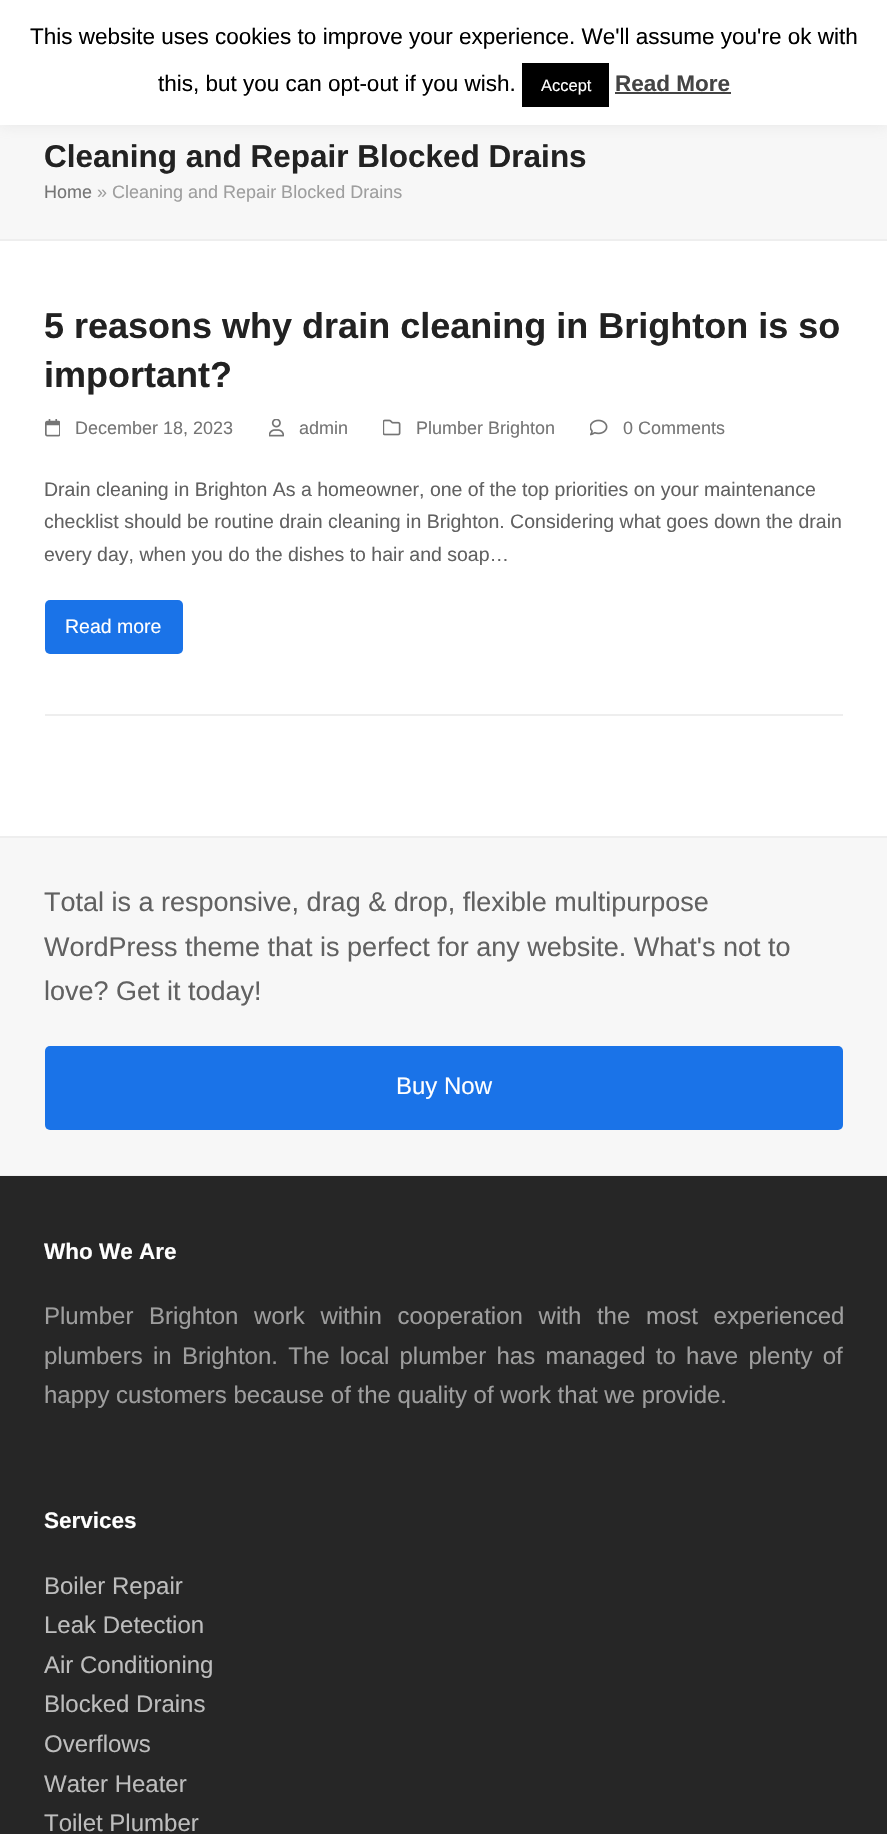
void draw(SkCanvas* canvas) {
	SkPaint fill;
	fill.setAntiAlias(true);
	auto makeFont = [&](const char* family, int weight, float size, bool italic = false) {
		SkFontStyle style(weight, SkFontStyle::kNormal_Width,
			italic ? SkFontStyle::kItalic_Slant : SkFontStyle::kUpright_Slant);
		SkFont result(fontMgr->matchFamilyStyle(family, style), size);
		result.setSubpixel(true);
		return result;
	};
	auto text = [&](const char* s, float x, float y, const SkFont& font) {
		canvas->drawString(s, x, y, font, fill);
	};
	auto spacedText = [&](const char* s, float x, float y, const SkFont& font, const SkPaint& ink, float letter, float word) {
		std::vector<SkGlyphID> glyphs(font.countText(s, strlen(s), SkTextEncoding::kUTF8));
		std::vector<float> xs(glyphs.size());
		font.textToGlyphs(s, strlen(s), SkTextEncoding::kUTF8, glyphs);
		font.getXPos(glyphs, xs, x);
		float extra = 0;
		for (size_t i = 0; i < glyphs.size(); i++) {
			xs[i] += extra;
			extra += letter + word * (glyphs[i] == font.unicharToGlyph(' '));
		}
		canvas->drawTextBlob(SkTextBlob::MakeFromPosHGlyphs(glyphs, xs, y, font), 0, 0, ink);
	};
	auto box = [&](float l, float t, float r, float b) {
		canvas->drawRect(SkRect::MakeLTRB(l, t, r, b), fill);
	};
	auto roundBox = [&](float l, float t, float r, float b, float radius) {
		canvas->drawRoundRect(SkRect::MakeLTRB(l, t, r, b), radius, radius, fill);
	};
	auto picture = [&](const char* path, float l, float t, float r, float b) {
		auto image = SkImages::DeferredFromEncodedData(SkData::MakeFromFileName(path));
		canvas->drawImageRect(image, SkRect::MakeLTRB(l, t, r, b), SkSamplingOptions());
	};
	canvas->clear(0xFFFFFFFF);
	fill.setColor(0xFFF7F7F7);
	box(0, 125, 887, 239);
	fill.setColor(0x4DACABAB);
	fill.setMaskFilter(SkMaskFilter::MakeBlur(kNormal_SkBlurStyle, 7.5f));
	canvas->drawRect(SkRect::MakeLTRB(0, -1, 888, 123), fill);
	fill.setMaskFilter(nullptr);
	fill.setColor(0xFFFFFFFF);
	box(0, 0, 887, 125);
	fill.setColor(0xFF000000);
	box(522, 63, 609, 107);
	fill.setColor(0xFF444444);
	box(615, 92, 731, 94);
	fill.setColor(0xFFEEEEEE);
	box(0, 239, 887, 241);
	picture("image0.png", 45, 419, 60, 437);
	picture("image1.png", 269, 419, 284, 437);
	picture("image2.png", 383, 419, 401, 436);
	picture("image3.png", 590, 419, 608, 436);
	fill.setColor(0xFF1A73E8);
	roundBox(45, 600, 183, 654, 5);
	fill.setColor(0xFFEEEEEE);
	box(45, 714, 843, 716);
	fill.setColor(0xFFF7F7F7);
	box(0, 838, 887, 1175);
	fill.setColor(0xFFEEEEEE);
	box(0, 836, 887, 838);
	box(0, 1175, 887, 1176);
	fill.setColor(0xFF1A73E8);
	roundBox(45, 1046, 843, 1130, 5);
	fill.setColor(0xFF262626);
	box(0, 1176, 887, 1834);
	auto font1 = makeFont("Liberation Sans", 400, 22.5f);
	fill.setColor(0xFF000000);
	text("This website uses cookies to improve your experience. We'll assume you're ok with", 30, 44, font1);
	text("this, but you can opt-out if you wish.", 158, 91, font1);
	auto font2 = makeFont("Liberation Sans", 400, 16.5f);
	fill.setColor(0xFFFFFFFF);
	text("Accept", 541, 91, font2);
	auto font3 = makeFont("Liberation Sans", 700, 22.5f);
	fill.setColor(0xFF444444);
	text("Read More", 615, 91, font3);
	auto font4 = makeFont("Liberation Sans", 700, 31.5f);
	fill.setColor(0xFF222222);
	text("Cleaning and Repair Blocked Drains", 44, 167, font4);
	auto font5 = makeFont("Liberation Sans", 400, 18);
	fill.setColor(0xFF757575);
	text("Home", 44, 198, font5);
	fill.setColor(0xFF9E9E9E);
	text("» Cleaning and Repair Blocked Drains", 97, 198, font5);
	auto font6 = makeFont("Liberation Sans", 700, 36);
	fill.setColor(0xFF222222);
	text("5 reasons why drain cleaning in Brighton is so", 44, 338, font6);
	text("important?", 44, 387, font6);
	fill.setColor(0xFF757575);
	text("December 18, 2023", 75, 434, font5);
	text("admin", 299, 434, font5);
	text("Plumber Brighton", 416, 434, font5);
	text("0 Comments", 623, 434, font5);
	auto font7 = makeFont("Liberation Sans", 400, 19.5f);
	fill.setColor(0xFF616161);
	text("Drain cleaning in Brighton As a homeowner, one of the top priorities on your maintenance", 44, 496, font7);
	text("checklist should be routine drain cleaning in Brighton. Considering what goes down the drain", 44, 528, font7);
	text("every day, when you do the dishes to hair and soap…", 44, 561, font7);
	fill.setColor(0xFFFFFFFF);
	text("Read more", 65, 633, font7);
	auto font8 = makeFont("Liberation Sans", 400, 27);
	fill.setColor(0xFF616161);
	text("Total is a responsive, drag & drop, flexible multipurpose", 44, 911, font8);
	text("WordPress theme that is perfect for any website. What's not to", 44, 956, font8);
	text("love? Get it today!", 44, 1000, font8);
	auto font9 = makeFont("Liberation Sans", 400, 24);
	fill.setColor(0xFFFFFFFF);
	text("Buy Now", 396, 1094, font9);
	text("Who We Are", 44, 1259, font3);
	fill.setColor(0xFF9E9E9E);
	spacedText("Plumber Brighton work within cooperation with the most experienced", 44, 1324, font9, fill, 0, 9);
	spacedText("plumbers in Brighton. The local plumber has managed to have plenty of", 44, 1364, font9, fill, 0, 3.6f);
	text("happy customers because of the quality of work that we provide.", 44, 1403, font9);
	fill.setColor(0xFFFFFFFF);
	text("Services", 44, 1528, font3);
	fill.setColor(0xFFBDBDBD);
	text("Boiler Repair", 44, 1594, font9);
	text("Leak Detection", 44, 1633, font9);
	text("Air Conditioning", 44, 1673, font9);
	text("Blocked Drains", 44, 1712, font9);
	text("Overflows", 44, 1752, font9);
	text("Water Heater", 44, 1792, font9);
	text("Toilet Plumber", 44, 1831, font9);
}
